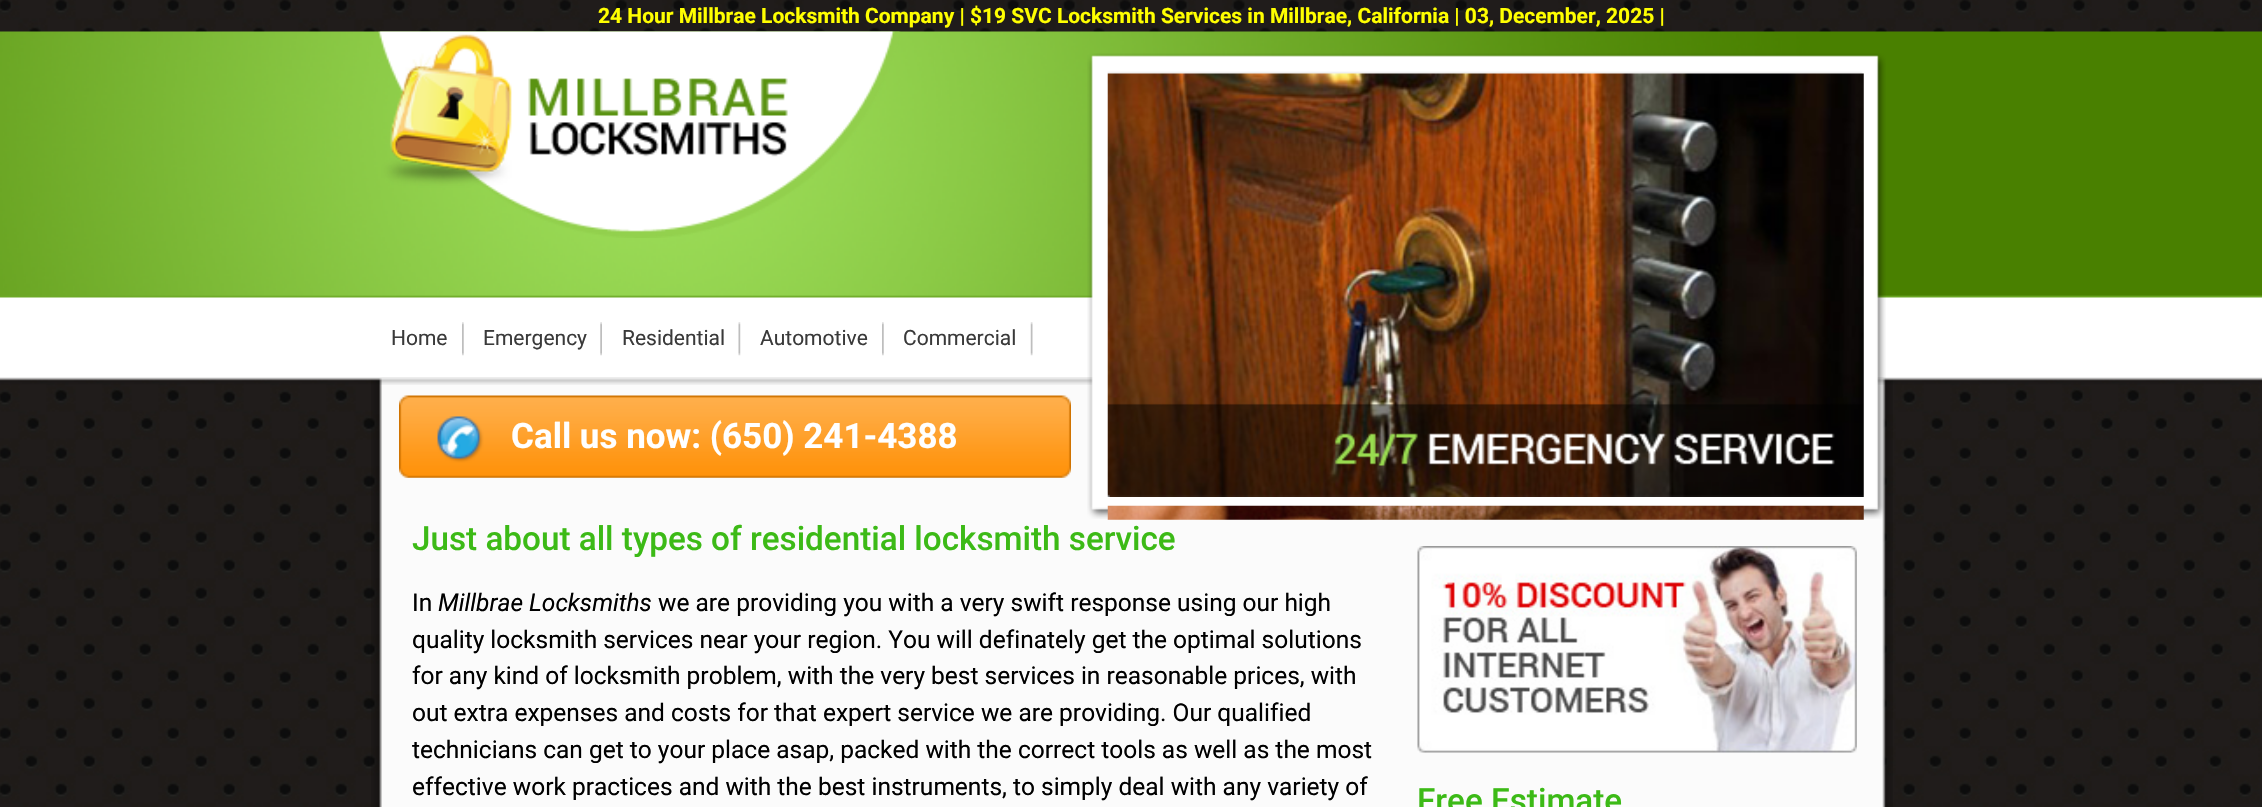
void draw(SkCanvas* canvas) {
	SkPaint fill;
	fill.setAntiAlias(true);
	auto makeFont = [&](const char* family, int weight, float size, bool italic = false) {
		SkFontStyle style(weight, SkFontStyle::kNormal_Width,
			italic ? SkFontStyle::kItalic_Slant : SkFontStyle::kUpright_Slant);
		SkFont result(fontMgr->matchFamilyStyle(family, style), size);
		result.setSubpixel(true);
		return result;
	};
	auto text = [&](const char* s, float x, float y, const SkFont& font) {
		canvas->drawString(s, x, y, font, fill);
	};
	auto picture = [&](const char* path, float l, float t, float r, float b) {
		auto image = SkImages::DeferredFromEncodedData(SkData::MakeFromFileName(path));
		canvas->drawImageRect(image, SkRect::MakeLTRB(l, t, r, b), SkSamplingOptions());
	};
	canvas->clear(0xFFFFFFFF);
	picture("image0.png", 0, 0, 2262, 807);
	picture("image10.png", 371, 378, 1893, 807);
	picture("image1.png", 0, 31, 2262, 385);
	picture("image2.png", 378, 31, 901, 238);
	picture("image3.png", 1087, 53, 1886, 519);
	picture("image4.png", 1107, 73, 1864, 497);
	picture("image5.png", 1107, 505, 1864, 520);
	picture("image6.png", 462, 322, 464, 356);
	picture("image7.png", 600, 322, 602, 356);
	picture("image8.png", 738, 322, 741, 356);
	picture("image6.png", 882, 322, 884, 356);
	picture("image9.png", 1030, 322, 1033, 356);
	picture("image11.png", 399, 395, 1071, 478);
	picture("image12.png", 1417, 546, 1857, 753);
	auto font1 = makeFont("Roboto", 700, 21);
	fill.setColor(0xFFFFFF00);
	text("24 Hour Millbrae Locksmith Company | $19 SVC Locksmith Services in Millbrae, California | 03, December, 2025 |", 598, 23, font1);
	auto font2 = makeFont("Roboto", 400, 21);
	fill.setColor(0xFF3A3A3A);
	text("Home", 391, 345, font2);
	text("Emergency", 483, 345, font2);
	text("Residential", 622, 345, font2);
	text("Automotive", 760, 345, font2);
	text("Commercial", 903, 345, font2);
	auto font3 = makeFont("Roboto", 700, 35);
	fill.setColor(0xFFFFFFFF);
	text("Call us now: (650) 241-4388", 511, 448, font3);
	auto font4 = makeFont("Roboto", 500, 33.25f);
	fill.setColor(0xFF3CBA16);
	text("Just about all types of residential locksmith service", 412, 550, font4);
	auto font5 = makeFont("Roboto", 400, 24.5f);
	fill.setColor(0xFF000000);
	text("In", 412, 611, font5);
	auto font6 = makeFont("Roboto", 400, 24.5f, true);
	text("Millbrae Locksmiths", 438, 611, font6);
	text("we are providing you with a very swift response using our high", 658, 611, font5);
	text("quality locksmith services near your region. You will definately get the optimal solutions", 412, 648, font5);
	text("for any kind of locksmith problem, with the very best services in reasonable prices, with", 412, 684, font5);
	text("out extra expenses and costs for that expert service we are providing. Our qualified", 412, 721, font5);
	text("technicians can get to your place asap, packed with the correct tools as well as the most", 412, 758, font5);
	text("effective work practices and with the best instruments, to simply deal with any variety of", 412, 795, font5);
	fill.setColor(0xFF3CBA16);
	text("Free Estimate", 1417, 812, font4);
}
